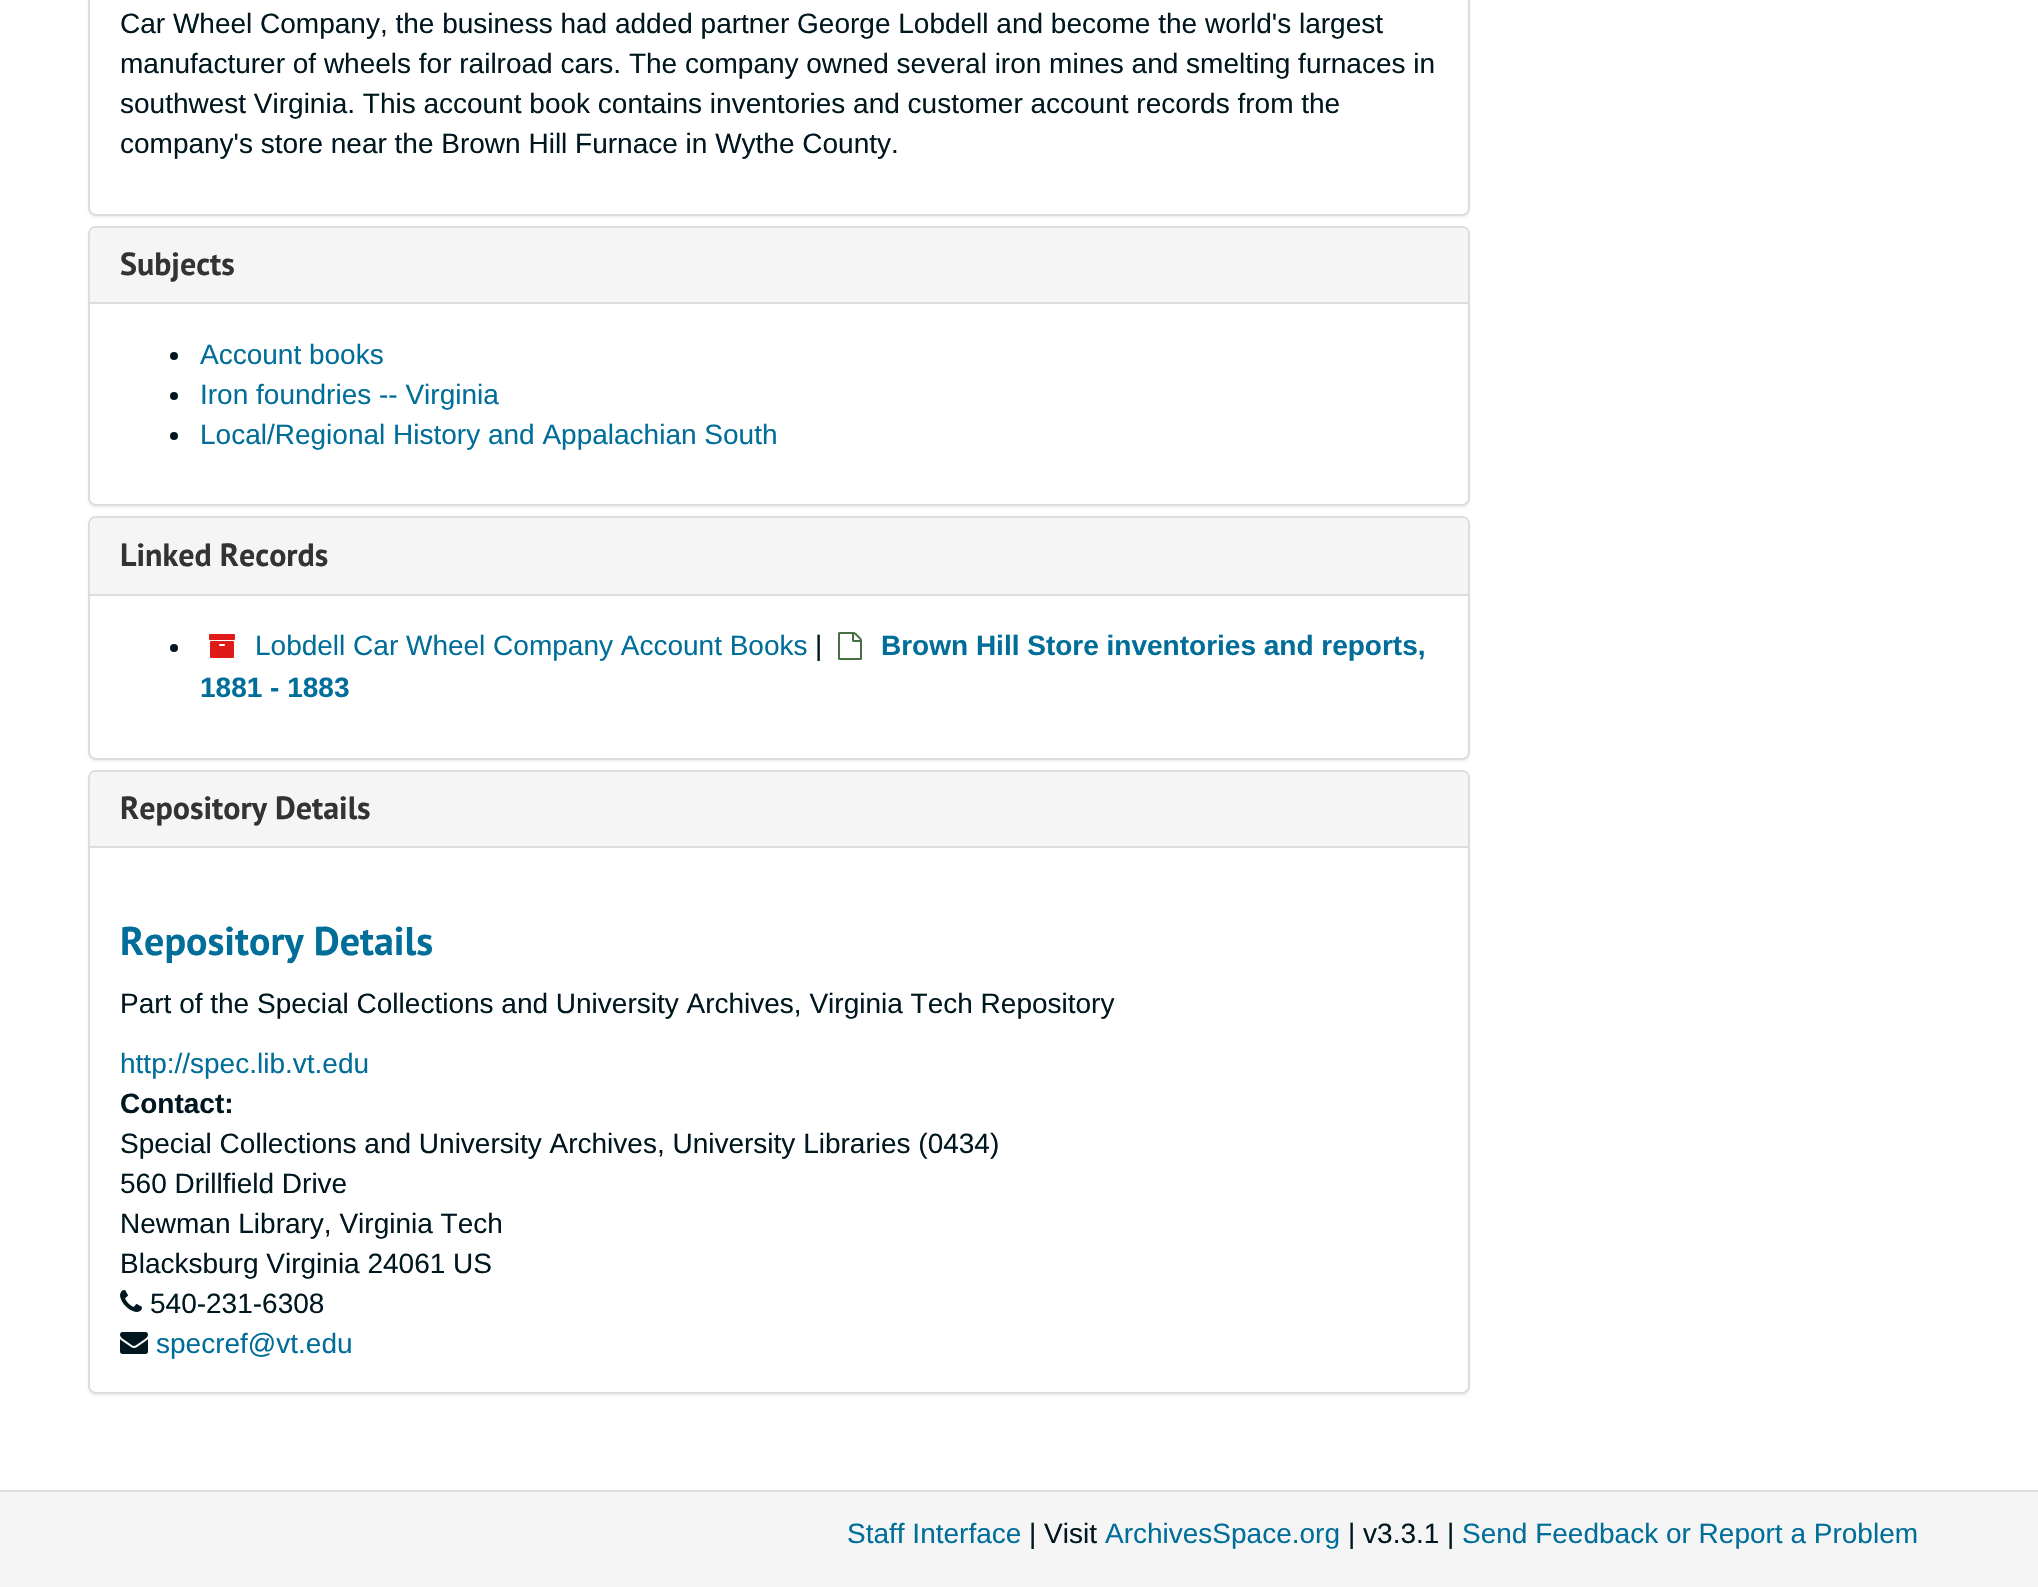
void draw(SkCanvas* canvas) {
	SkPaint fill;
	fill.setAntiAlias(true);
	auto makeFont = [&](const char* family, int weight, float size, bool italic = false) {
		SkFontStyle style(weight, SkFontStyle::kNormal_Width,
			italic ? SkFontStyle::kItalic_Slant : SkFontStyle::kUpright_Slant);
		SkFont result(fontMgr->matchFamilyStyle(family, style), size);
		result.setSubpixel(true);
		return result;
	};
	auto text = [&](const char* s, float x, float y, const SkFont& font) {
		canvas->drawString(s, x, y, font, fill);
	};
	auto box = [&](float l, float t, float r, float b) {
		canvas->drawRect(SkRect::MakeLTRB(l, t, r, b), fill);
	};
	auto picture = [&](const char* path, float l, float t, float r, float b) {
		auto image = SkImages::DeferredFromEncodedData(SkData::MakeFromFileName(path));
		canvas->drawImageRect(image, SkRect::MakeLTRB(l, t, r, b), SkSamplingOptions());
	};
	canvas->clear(0xFFFFFFFF);
	fill.setColor(0x0D000000);
	fill.setMaskFilter(SkMaskFilter::MakeBlur(kNormal_SkBlurStyle, 1));
	canvas->drawRoundRect(SkRect::MakeLTRB(88, -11, 1470, 218), 8, 8, fill);
	fill.setMaskFilter(nullptr);
	fill.setColor(0xFFFFFFFF);
	canvas->drawRoundRect(SkRect::MakeLTRB(89, -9, 1469, 215), 7, 7, fill);
	fill.setStyle(SkPaint::kStroke_Style);
	fill.setStrokeWidth(2);
	fill.setColor(0xFFDDDDDD);
	canvas->drawRoundRect(SkRect::MakeLTRB(89, -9, 1469, 215), 7, 7, fill);
	fill.setStyle(SkPaint::kFill_Style);
	fill.setColor(0x0D000000);
	fill.setMaskFilter(SkMaskFilter::MakeBlur(kNormal_SkBlurStyle, 1));
	canvas->drawRoundRect(SkRect::MakeLTRB(88, 228, 1470, 508), 8, 8, fill);
	fill.setMaskFilter(nullptr);
	fill.setColor(0xFFFFFFFF);
	canvas->drawRoundRect(SkRect::MakeLTRB(89, 227, 1469, 505), 7, 7, fill);
	fill.setStyle(SkPaint::kStroke_Style);
	fill.setColor(0xFFDDDDDD);
	canvas->drawRoundRect(SkRect::MakeLTRB(89, 227, 1469, 505), 7, 7, fill);
	fill.setStyle(SkPaint::kFill_Style);
	fill.setColor(0xFFF5F5F5);
	canvas->drawPath(SkPathBuilder().moveTo(96, 228).lineTo(1462, 228).cubicTo(1465.5f, 228, 1468, 230.5f, 1468, 234).lineTo(1468, 302).lineTo(90, 302).lineTo(90, 234).cubicTo(90, 230.5f, 92.5f, 228, 96, 228).close().detach(), fill);
	fill.setColor(0xFFDDDDDD);
	box(90, 302, 1468, 304);
	fill.setColor(0xFF00171F);
	canvas->drawCircle(174, 356, 4, fill);
	canvas->drawCircle(174, 396, 4, fill);
	canvas->drawCircle(174, 436, 4, fill);
	fill.setColor(0x0D000000);
	fill.setMaskFilter(SkMaskFilter::MakeBlur(kNormal_SkBlurStyle, 1));
	canvas->drawRoundRect(SkRect::MakeLTRB(88, 518, 1470, 762), 8, 8, fill);
	fill.setMaskFilter(nullptr);
	fill.setColor(0xFFFFFFFF);
	canvas->drawRoundRect(SkRect::MakeLTRB(89, 517, 1469, 759), 7, 7, fill);
	fill.setStyle(SkPaint::kStroke_Style);
	fill.setColor(0xFFDDDDDD);
	canvas->drawRoundRect(SkRect::MakeLTRB(89, 517, 1469, 759), 7, 7, fill);
	fill.setStyle(SkPaint::kFill_Style);
	fill.setColor(0xFFF5F5F5);
	canvas->drawPath(SkPathBuilder().moveTo(96, 518).lineTo(1462, 518).cubicTo(1465.5f, 518, 1468, 520.5f, 1468, 524).lineTo(1468, 594).lineTo(90, 594).lineTo(90, 524).cubicTo(90, 520.5f, 92.5f, 518, 96, 518).close().detach(), fill);
	fill.setColor(0xFFDDDDDD);
	box(90, 594, 1468, 596);
	fill.setColor(0xFF00171F);
	canvas->drawCircle(174, 648, 4, fill);
	picture("image0.png", 209, 634, 235, 658);
	picture("image1.png", 838, 632, 862, 660);
	fill.setColor(0x0D000000);
	fill.setMaskFilter(SkMaskFilter::MakeBlur(kNormal_SkBlurStyle, 1));
	canvas->drawRoundRect(SkRect::MakeLTRB(88, 772, 1470, 1396), 8, 8, fill);
	fill.setMaskFilter(nullptr);
	fill.setColor(0xFFFFFFFF);
	canvas->drawRoundRect(SkRect::MakeLTRB(89, 771, 1469, 1393), 7, 7, fill);
	fill.setStyle(SkPaint::kStroke_Style);
	fill.setColor(0xFFDDDDDD);
	canvas->drawRoundRect(SkRect::MakeLTRB(89, 771, 1469, 1393), 7, 7, fill);
	fill.setStyle(SkPaint::kFill_Style);
	fill.setColor(0xFFF5F5F5);
	canvas->drawPath(SkPathBuilder().moveTo(96, 772).lineTo(1462, 772).cubicTo(1465.5f, 772, 1468, 774.5f, 1468, 778).lineTo(1468, 846).lineTo(90, 846).lineTo(90, 778).cubicTo(90, 774.5f, 92.5f, 772, 96, 772).close().detach(), fill);
	fill.setColor(0xFFDDDDDD);
	box(90, 846, 1468, 848);
	picture("image2.png", 120, 1290, 142, 1312);
	picture("image3.png", 120, 1332, 148, 1354);
	fill.setColor(0xFFF5F5F5);
	box(0, 1492, 2038, 1587);
	fill.setColor(0xFFDDDDDD);
	box(0, 1490, 2038, 1492);
	auto font1 = makeFont("Liberation Sans", 400, 28);
	fill.setColor(0xFF00171F);
	text("Car Wheel Company, the business had added partner George Lobdell and become the world's largest", 120, 33, font1);
	text("manufacturer of wheels for railroad cars. The company owned several iron mines and smelting furnaces in", 120, 73, font1);
	text("southwest Virginia. This account book contains inventories and customer account records from the", 120, 113, font1);
	text("company's store near the Brown Hill Furnace in Wythe County.", 120, 153, font1);
	auto font2 = makeFont("PT Sans", 700, 32);
	fill.setColor(0xFF333333);
	text("Subjects", 120, 275, font2);
	fill.setColor(0xFF006E99);
	text("Account books", 200, 364, font1);
	text("Iron foundries -- Virginia", 200, 404, font1);
	text("Local/Regional History and Appalachian South", 200, 444, font1);
	fill.setColor(0xFF333333);
	text("Linked Records", 120, 566, font2);
	fill.setColor(0xFF006E99);
	text("Lobdell Car Wheel Company Account Books", 255, 655, font1);
	fill.setColor(0xFF00171F);
	text("|", 815, 655, font1);
	auto font3 = makeFont("Liberation Sans", 700, 28);
	fill.setColor(0xFF006E99);
	text("Brown Hill Store inventories and reports,", 881, 655, font3);
	text("1881 - 1883", 200, 697, font3);
	fill.setColor(0xFF333333);
	text("Repository Details", 120, 819, font2);
	auto font4 = makeFont("PT Sans", 700, 40);
	fill.setColor(0xFF006E99);
	text("Repository Details", 120, 955, font4);
	fill.setColor(0xFF00171F);
	text("Part of the Special Collections and University Archives, Virginia Tech Repository", 120, 1013, font1);
	fill.setColor(0xFF006E99);
	text("http://spec.lib.vt.edu", 120, 1073, font1);
	fill.setColor(0xFF00171F);
	text("Contact:", 120, 1113, font3);
	text("Special Collections and University Archives, University Libraries (0434)", 120, 1153, font1);
	text("560 Drillfield Drive", 120, 1193, font1);
	text("Newman Library, Virginia Tech", 120, 1233, font1);
	text("Blacksburg Virginia 24061 US", 120, 1273, font1);
	text("540-231-6308", 150, 1313, font1);
	fill.setColor(0xFF006E99);
	text("specref@vt.edu", 156, 1353, font1);
	text("Staff Interface", 847, 1543, font1);
	fill.setColor(0xFF00171F);
	text("| Visit", 1029, 1543, font1);
	fill.setColor(0xFF006E99);
	text("ArchivesSpace.org", 1105, 1543, font1);
	fill.setColor(0xFF00171F);
	text("| v3.3.1 |", 1348, 1543, font1);
	fill.setColor(0xFF006E99);
	text("Send Feedback or Report a Problem", 1462, 1543, font1);
}
